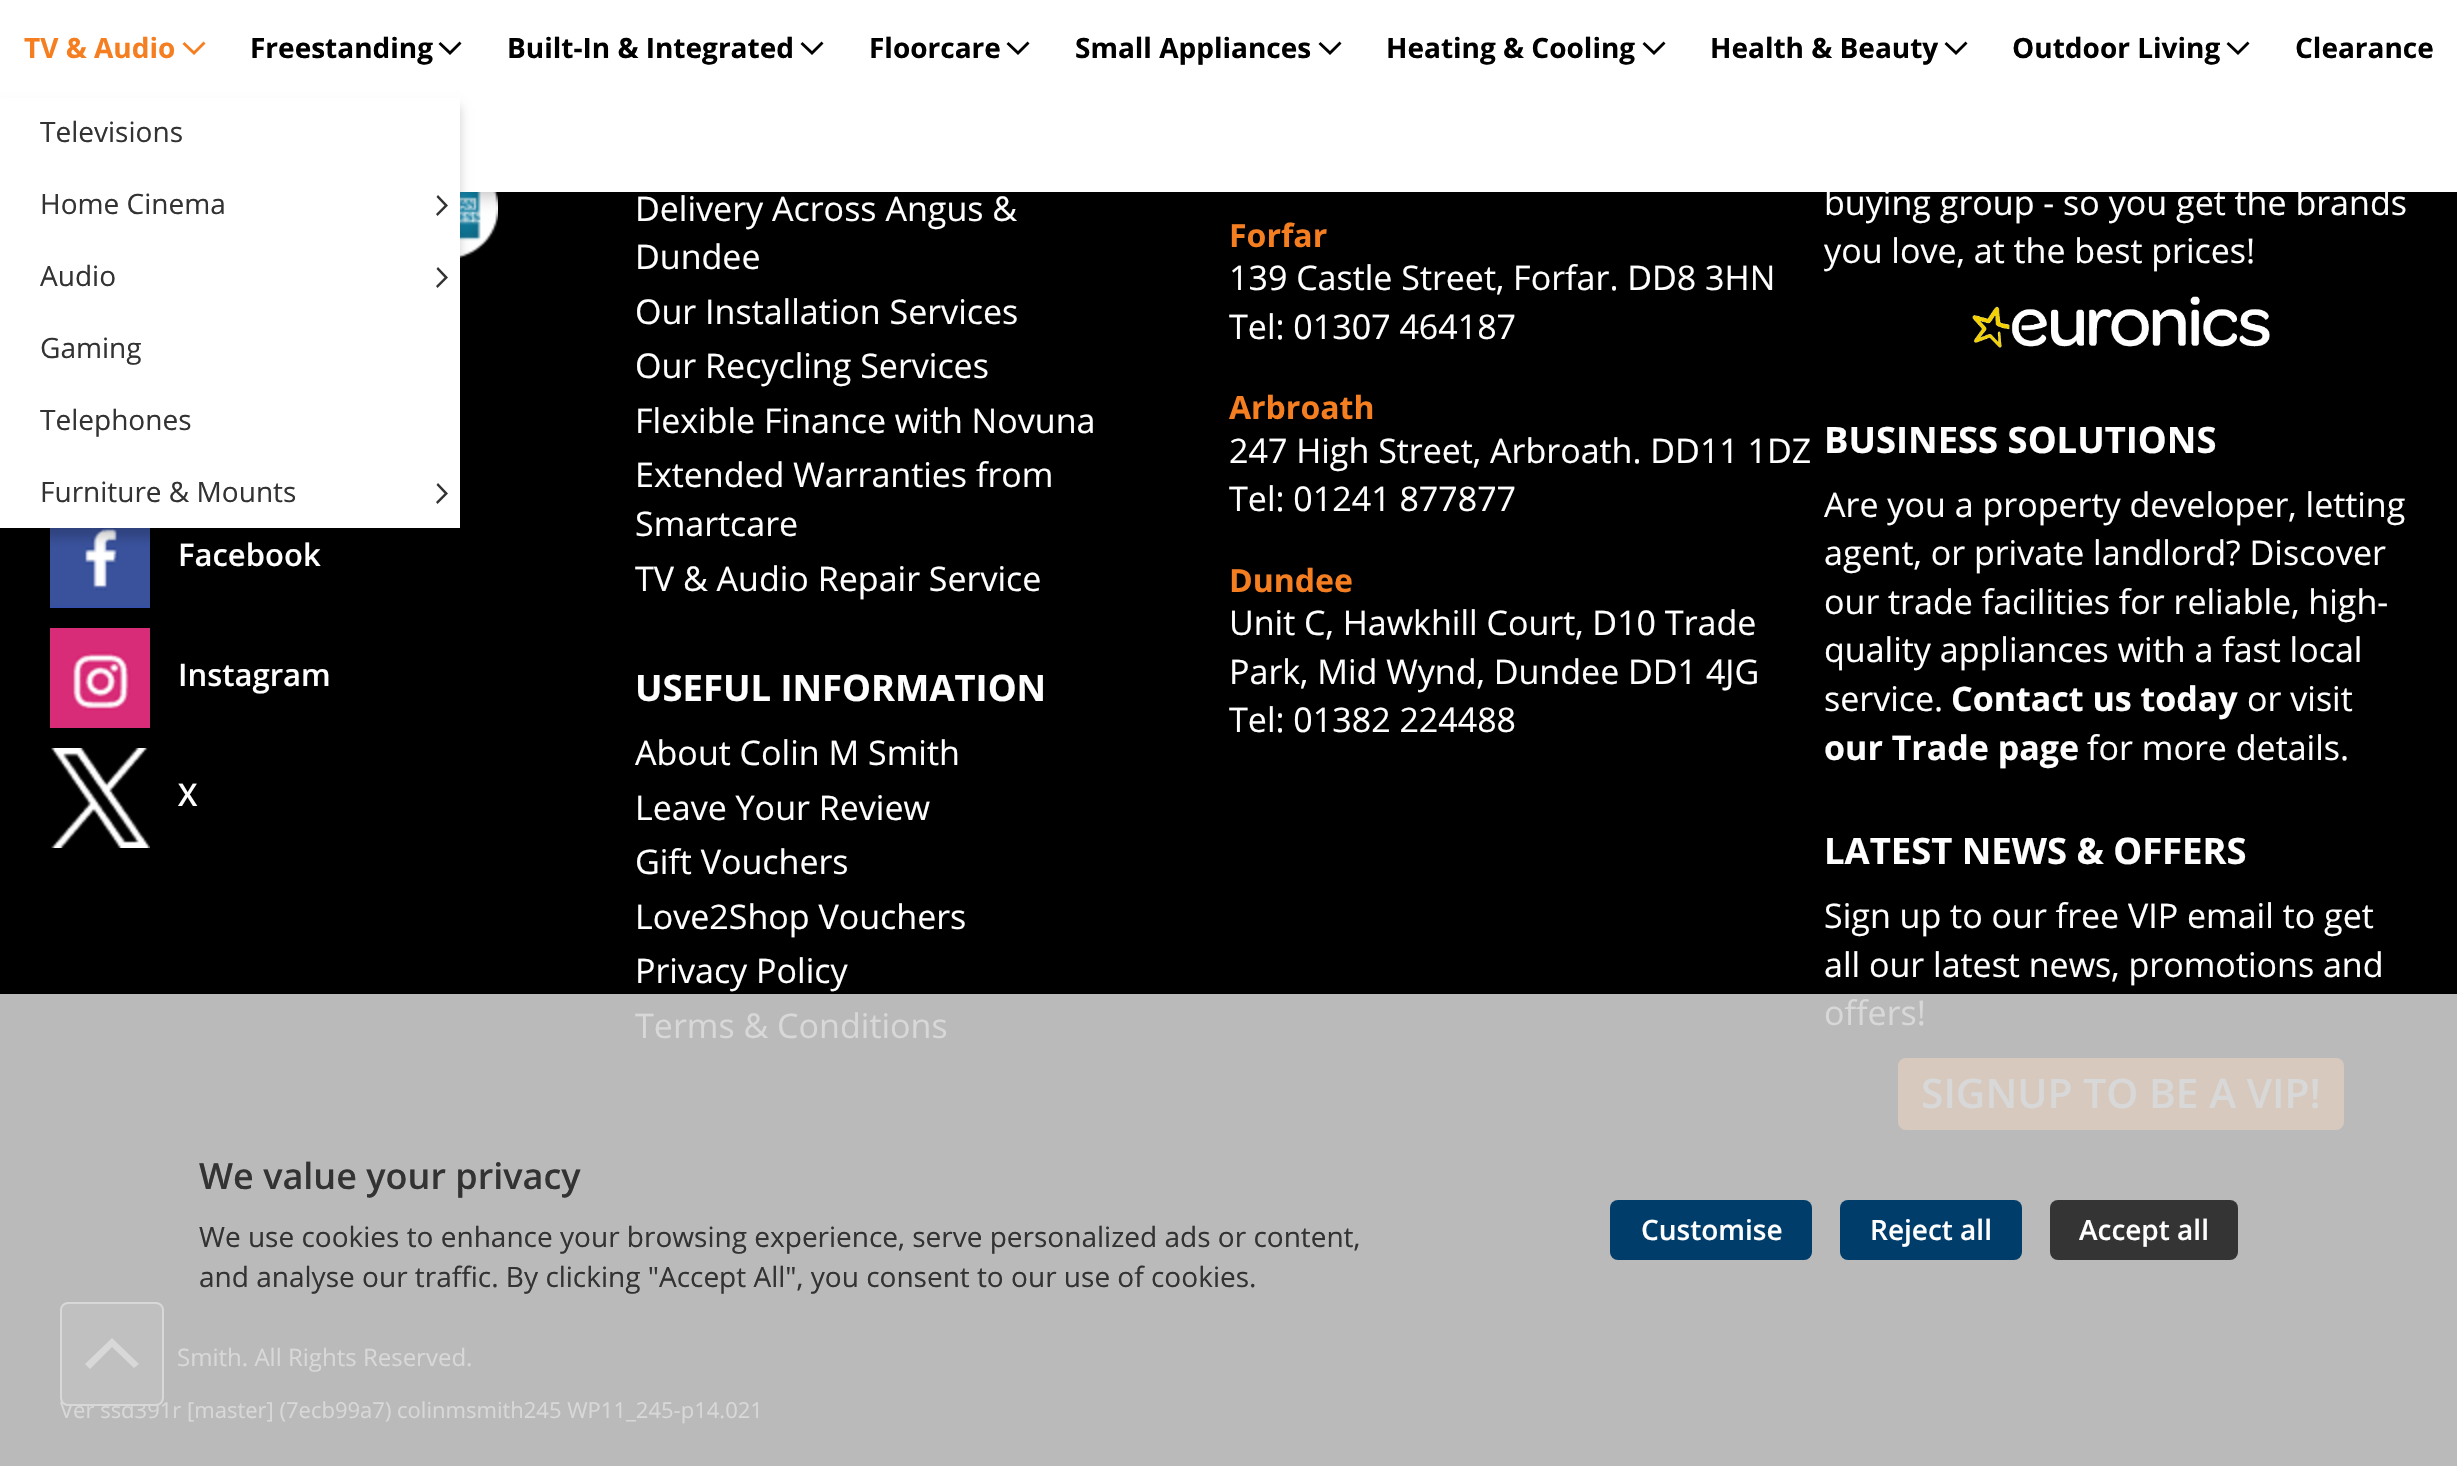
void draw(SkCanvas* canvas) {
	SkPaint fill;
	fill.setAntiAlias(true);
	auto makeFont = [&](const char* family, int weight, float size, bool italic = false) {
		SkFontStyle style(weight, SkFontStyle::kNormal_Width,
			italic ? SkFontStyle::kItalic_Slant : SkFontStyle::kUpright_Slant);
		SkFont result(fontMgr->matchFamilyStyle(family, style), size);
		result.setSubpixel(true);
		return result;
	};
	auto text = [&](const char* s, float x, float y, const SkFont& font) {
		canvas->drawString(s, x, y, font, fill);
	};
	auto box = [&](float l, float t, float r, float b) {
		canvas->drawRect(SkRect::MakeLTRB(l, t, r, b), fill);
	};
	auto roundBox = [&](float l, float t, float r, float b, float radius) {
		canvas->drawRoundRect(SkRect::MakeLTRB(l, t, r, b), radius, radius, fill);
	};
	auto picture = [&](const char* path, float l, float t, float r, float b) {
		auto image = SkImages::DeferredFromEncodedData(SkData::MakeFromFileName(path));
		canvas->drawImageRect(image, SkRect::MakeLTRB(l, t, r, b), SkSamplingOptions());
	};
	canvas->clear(0xFF000000);
	picture("image0.png", 460, 192, 498, 258);
	fill.setColor(0x54000000);
	fill.setMaskFilter(SkMaskFilter::MakeBlur(kNormal_SkBlurStyle, 10));
	canvas->drawRect(SkRect::MakeLTRB(0, 0, 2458, 192), fill);
	fill.setMaskFilter(nullptr);
	fill.setColor(0xFFFFFFFF);
	box(0, 0, 2457, 192);
	fill.setColor(0xFFF57E20);
	canvas->drawPath(SkPathBuilder().moveTo(194, 51).lineTo(184.5f, 42).lineTo(182.5f, 44).lineTo(194, 55).lineTo(205.5f, 43.5f).lineTo(203.5f, 41.5f).close().detach(), fill);
	picture("image1.png", 50, 528, 150, 608);
	fill.setColor(0x30000000);
	fill.setMaskFilter(SkMaskFilter::MakeBlur(kNormal_SkBlurStyle, 5));
	canvas->drawRect(SkRect::MakeLTRB(0, 106, 460, 538), fill);
	fill.setMaskFilter(nullptr);
	fill.setColor(0xFFFFFFFF);
	box(0, 98, 460, 528);
	fill.setColor(0xFF333333);
	canvas->drawPath(SkPathBuilder().moveTo(448, 205.5f).lineTo(438, 195).lineTo(436.5f, 197).lineTo(444.5f, 205.5f).lineTo(436, 214).lineTo(437.5f, 216).close().detach(), fill);
	canvas->drawPath(SkPathBuilder().moveTo(448, 277.5f).lineTo(438, 267).lineTo(436.5f, 269).lineTo(444.5f, 277.5f).lineTo(436, 286).lineTo(437.5f, 288).close().detach(), fill);
	canvas->drawPath(SkPathBuilder().moveTo(448, 493.5f).lineTo(438, 483).lineTo(436.5f, 485).lineTo(444.5f, 493.5f).lineTo(436, 502).lineTo(437.5f, 504).close().detach(), fill);
	fill.setColor(0xFF000000);
	canvas->drawPath(SkPathBuilder().moveTo(450, 51).lineTo(440.5f, 42).lineTo(438.5f, 44).lineTo(450, 55).lineTo(461.5f, 43.5f).lineTo(459.5f, 41.5f).close().detach(), fill);
	canvas->drawPath(SkPathBuilder().moveTo(812, 51).lineTo(802.5f, 42).lineTo(800.5f, 44).lineTo(812, 55).lineTo(823.5f, 43.5f).lineTo(821.5f, 41.5f).close().detach(), fill);
	canvas->drawPath(SkPathBuilder().moveTo(1018, 51).lineTo(1008.5f, 42).lineTo(1006.5f, 44).lineTo(1018, 55).lineTo(1029.5f, 43.5f).lineTo(1027.5f, 41.5f).close().detach(), fill);
	canvas->drawPath(SkPathBuilder().moveTo(1330, 51).lineTo(1320.5f, 42).lineTo(1318.5f, 44).lineTo(1330, 55).lineTo(1341.5f, 43.5f).lineTo(1339.5f, 41.5f).close().detach(), fill);
	canvas->drawPath(SkPathBuilder().moveTo(1654, 51).lineTo(1644.5f, 42).lineTo(1642.5f, 44).lineTo(1654, 55).lineTo(1665.5f, 43.5f).lineTo(1663.5f, 41.5f).close().detach(), fill);
	canvas->drawPath(SkPathBuilder().moveTo(1956, 51).lineTo(1946.5f, 42).lineTo(1944.5f, 44).lineTo(1956, 55).lineTo(1967.5f, 43.5f).lineTo(1965.5f, 41.5f).close().detach(), fill);
	canvas->drawPath(SkPathBuilder().moveTo(2238, 51).lineTo(2228.5f, 42).lineTo(2226.5f, 44).lineTo(2238, 55).lineTo(2249.5f, 43.5f).lineTo(2247.5f, 41.5f).close().detach(), fill);
	fill.setColor(0xFFBABABA);
	box(0, 994, 2457, 1466);
	picture("image2.png", 50, 628, 150, 728);
	picture("image3.png", 51, 748, 150, 848);
	picture("image4.png", 1972, 296, 2270, 348);
	fill.setColor(0xFFD7C9BE);
	roundBox(1898, 1058, 2344, 1130, 8);
	fill.setColor(0xFF003D6A);
	roundBox(1610, 1200, 1812, 1260, 8);
	roundBox(1840, 1200, 2022, 1260, 8);
	fill.setColor(0xFF343434);
	roundBox(2050, 1200, 2238, 1260, 8);
	auto font1 = makeFont("Open Sans", 700, 28);
	fill.setColor(0xFFF57E20);
	text("TV & Audio", 24, 58, font1);
	auto font2 = makeFont("Open Sans", 400, 28);
	fill.setColor(0xFF333333);
	text("Televisions", 40, 142, font2);
	text("Home Cinema", 40, 214, font2);
	text("Audio", 40, 286, font2);
	text("Gaming", 40, 358, font2);
	text("Telephones", 40, 430, font2);
	text("Furniture & Mounts", 40, 502, font2);
	fill.setColor(0xFF000000);
	text("Freestanding", 250, 58, font1);
	text("Built-In & Integrated", 507, 58, font1);
	text("Floorcare", 869, 58, font1);
	text("Small Appliances", 1075, 58, font1);
	text("Heating & Cooling", 1386, 58, font1);
	text("Health & Beauty", 1710, 58, font1);
	text("Outdoor Living", 2012, 58, font1);
	text("Clearance", 2295, 58, font1);
	auto font3 = makeFont("Open Sans", 600, 31);
	fill.setColor(0xFFFFFFFF);
	text("Facebook", 178, 566, font3);
	text("Instagram", 178, 686, font3);
	text("X", 178, 806, font3);
	auto font4 = makeFont("Open Sans", 400, 34);
	text("Delivery Across Angus &", 635, 221, font4);
	text("Dundee", 635, 269, font4);
	text("Our Installation Services", 635, 324, font4);
	text("Our Recycling Services", 635, 378, font4);
	text("Flexible Finance with Novuna", 635, 433, font4);
	text("Extended Warranties from", 635, 487, font4);
	text("Smartcare", 635, 536, font4);
	text("TV & Audio Repair Service", 635, 591, font4);
	auto font5 = makeFont("Open Sans", 700, 36.4f);
	text("USEFUL INFORMATION", 635, 701, font5);
	text("About Colin M Smith", 635, 765, font4);
	text("Leave Your Review", 635, 820, font4);
	text("Gift Vouchers", 635, 874, font4);
	text("Love2Shop Vouchers", 635, 929, font4);
	text("Privacy Policy", 635, 983, font4);
	fill.setColor(0xFFD8D8D8);
	text("Terms & Conditions", 635, 1038, font4);
	auto font6 = makeFont("Open Sans", 700, 32);
	fill.setColor(0xFFF57E20);
	text("Forfar", 1229, 247, font6);
	fill.setColor(0xFFFFFFFF);
	text("139 Castle Street, Forfar. DD8 3HN", 1229, 290, font4);
	text("Tel: 01307 464187", 1229, 339, font4);
	fill.setColor(0xFFF57E20);
	text("Arbroath", 1229, 419, font6);
	fill.setColor(0xFFFFFFFF);
	text("247 High Street, Arbroath. DD11 1DZ", 1229, 463, font4);
	text("Tel: 01241 877877", 1229, 511, font4);
	fill.setColor(0xFFF57E20);
	text("Dundee", 1229, 592, font6);
	fill.setColor(0xFFFFFFFF);
	text("Unit C, Hawkhill Court, D10 Trade", 1229, 635, font4);
	text("Park, Mid Wynd, Dundee DD1 4JG", 1229, 684, font4);
	text("Tel: 01382 224488", 1229, 732, font4);
	text("buying group - so you get the brands", 1824, 215, font4);
	text("you love, at the best prices!", 1824, 263, font4);
	text("BUSINESS SOLUTIONS", 1824, 453, font5);
	text("Are you a property developer, letting", 1824, 517, font4);
	text("agent, or private landlord? Discover", 1824, 565, font4);
	text("our trade facilities for reliable, high-", 1824, 614, font4);
	text("quality appliances with a fast local", 1824, 662, font4);
	text("service.", 1824, 711, font4);
	auto font7 = makeFont("Open Sans", 700, 34);
	text("Contact us today", 1951, 711, font7);
	text("or visit", 2247, 711, font4);
	text("our Trade page", 1824, 760, font7);
	text("for more details.", 2087, 760, font4);
	text("LATEST NEWS & OFFERS", 1824, 864, font5);
	text("Sign up to our free VIP email to get", 1824, 928, font4);
	text("all our latest news, promotions and", 1824, 977, font4);
	fill.setColor(0xFFD8D8D8);
	text("offers!", 1824, 1025, font4);
	auto font8 = makeFont("Open Sans", 600, 40.75f);
	text("SIGNUP TO BE A VIP!", 1921, 1108, font8);
	auto font9 = makeFont("Open Sans", 600, 36);
	fill.setColor(0xFF333333);
	text("We value your privacy", 199, 1189, font9);
	text("We use cookies to enhance your browsing experience, serve personalized ads or content,", 199, 1247, font2);
	text("and analyse our traffic. By clicking \"Accept All\", you consent to our use of cookies.", 199, 1287, font2);
	auto font10 = makeFont("Open Sans", 600, 28);
	fill.setColor(0xFFFFFFFF);
	text("Customise", 1641, 1240, font10);
	text("Reject all", 1870, 1240, font10);
	text("Accept all", 2079, 1240, font10);
	auto font11 = makeFont("Open Sans", 400, 24);
	fill.setColor(0xFFD8D8D8);
	text("Smith. All Rights Reserved.", 177, 1366, font11);
	auto font12 = makeFont("Open Sans", 400, 22);
	text("Ver ssd391r [master] (7ecb99a7) colinmsmith245 WP11_245-p14.021", 60, 1418, font12);
	fill.setColor(0xFFC0C0C0);
	canvas->drawRoundRect(SkRect::MakeLTRB(61, 1303, 163, 1405), 7, 7, fill);
	fill.setStyle(SkPaint::kStroke_Style);
	fill.setStrokeWidth(2);
	fill.setColor(0xFFD8D8D8);
	canvas->drawRoundRect(SkRect::MakeLTRB(61, 1303, 163, 1405), 7, 7, fill);
	fill.setStyle(SkPaint::kFill_Style);
	canvas->drawPath(SkPathBuilder().moveTo(112, 1347).lineTo(134, 1368).lineTo(139, 1364).lineTo(112, 1338).lineTo(85, 1364).lineTo(90, 1369).close().detach(), fill);
}
